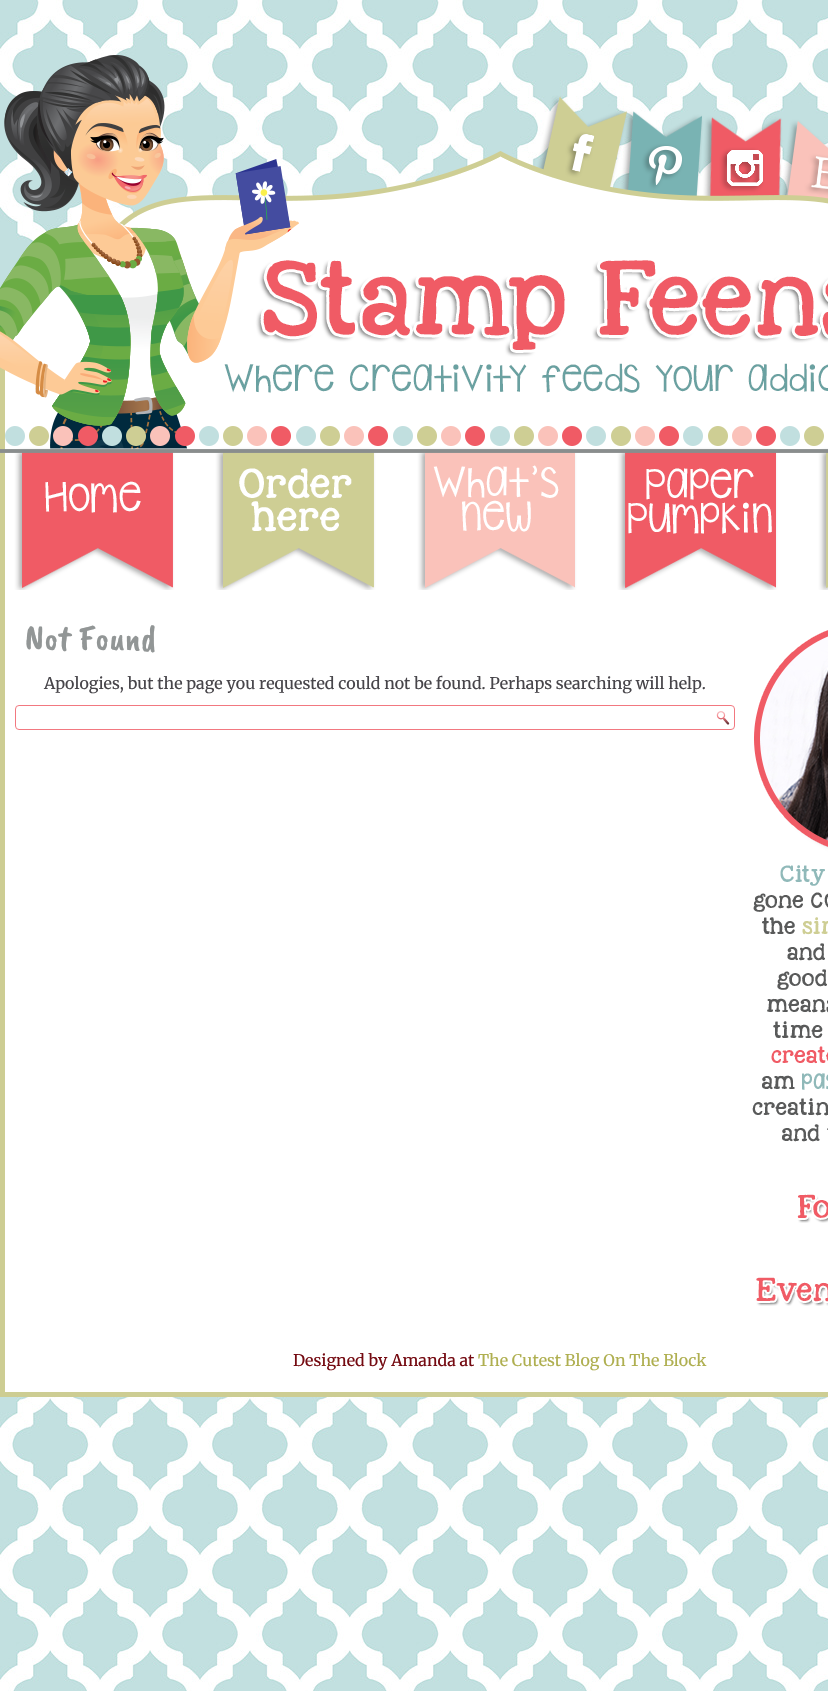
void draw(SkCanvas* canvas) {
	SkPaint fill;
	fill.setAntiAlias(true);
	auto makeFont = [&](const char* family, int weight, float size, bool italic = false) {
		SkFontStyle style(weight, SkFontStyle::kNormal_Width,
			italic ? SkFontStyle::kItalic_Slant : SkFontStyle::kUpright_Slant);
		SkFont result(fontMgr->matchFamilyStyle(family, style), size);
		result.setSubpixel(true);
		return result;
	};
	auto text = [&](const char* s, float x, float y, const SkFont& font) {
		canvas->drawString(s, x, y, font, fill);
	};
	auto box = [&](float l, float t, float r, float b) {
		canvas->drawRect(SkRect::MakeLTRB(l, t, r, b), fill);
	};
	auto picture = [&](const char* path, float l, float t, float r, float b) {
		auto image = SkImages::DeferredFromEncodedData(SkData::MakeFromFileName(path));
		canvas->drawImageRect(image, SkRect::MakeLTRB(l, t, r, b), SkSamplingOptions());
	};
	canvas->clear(0xFFFFFFFF);
	picture("image0.png", 0, 0, 828, 1691);
	picture("image1.png", 0, 55, 828, 590);
	fill.setColor(0xFFFFFFFF);
	box(5, 590, 828, 1392);
	fill.setColor(0xFFCDCD93);
	box(0, 1392, 828, 1397);
	box(0, 590, 5, 1397);
	fill.setStyle(SkPaint::kStroke_Style);
	fill.setStrokeWidth(1);
	fill.setColor(0xFFF27880);
	canvas->drawRoundRect(SkRect::MakeLTRB(15.5f, 705.5f, 734.5f, 729.5f), 3.5f, 3.5f, fill);
	picture("image2.png", 716, 711, 730, 725);
	picture("image3.png", 752, 630, 828, 1142);
	picture("image4.png", 797, 1194, 828, 1223);
	picture("image5.png", 756, 1277, 828, 1306);
	auto font1 = makeFont("Caveat Brush", 400, 36);
	fill.setStyle(SkPaint::kFill_Style);
	fill.setColor(0xFF929696);
	text("Not Found", 25, 650, font1);
	auto font2 = makeFont("Merriweather", 400, 16);
	fill.setColor(0xFF47454A);
	text("Apologies, but the page you requested could not be found. Perhaps searching will help.", 44, 689, font2);
	fill.setColor(0xFF750B12);
	text("Designed by Amanda at", 293, 1366, font2);
	fill.setColor(0xFFAFAF50);
	text("The Cutest Blog On The Block", 478, 1366, font2);
}
